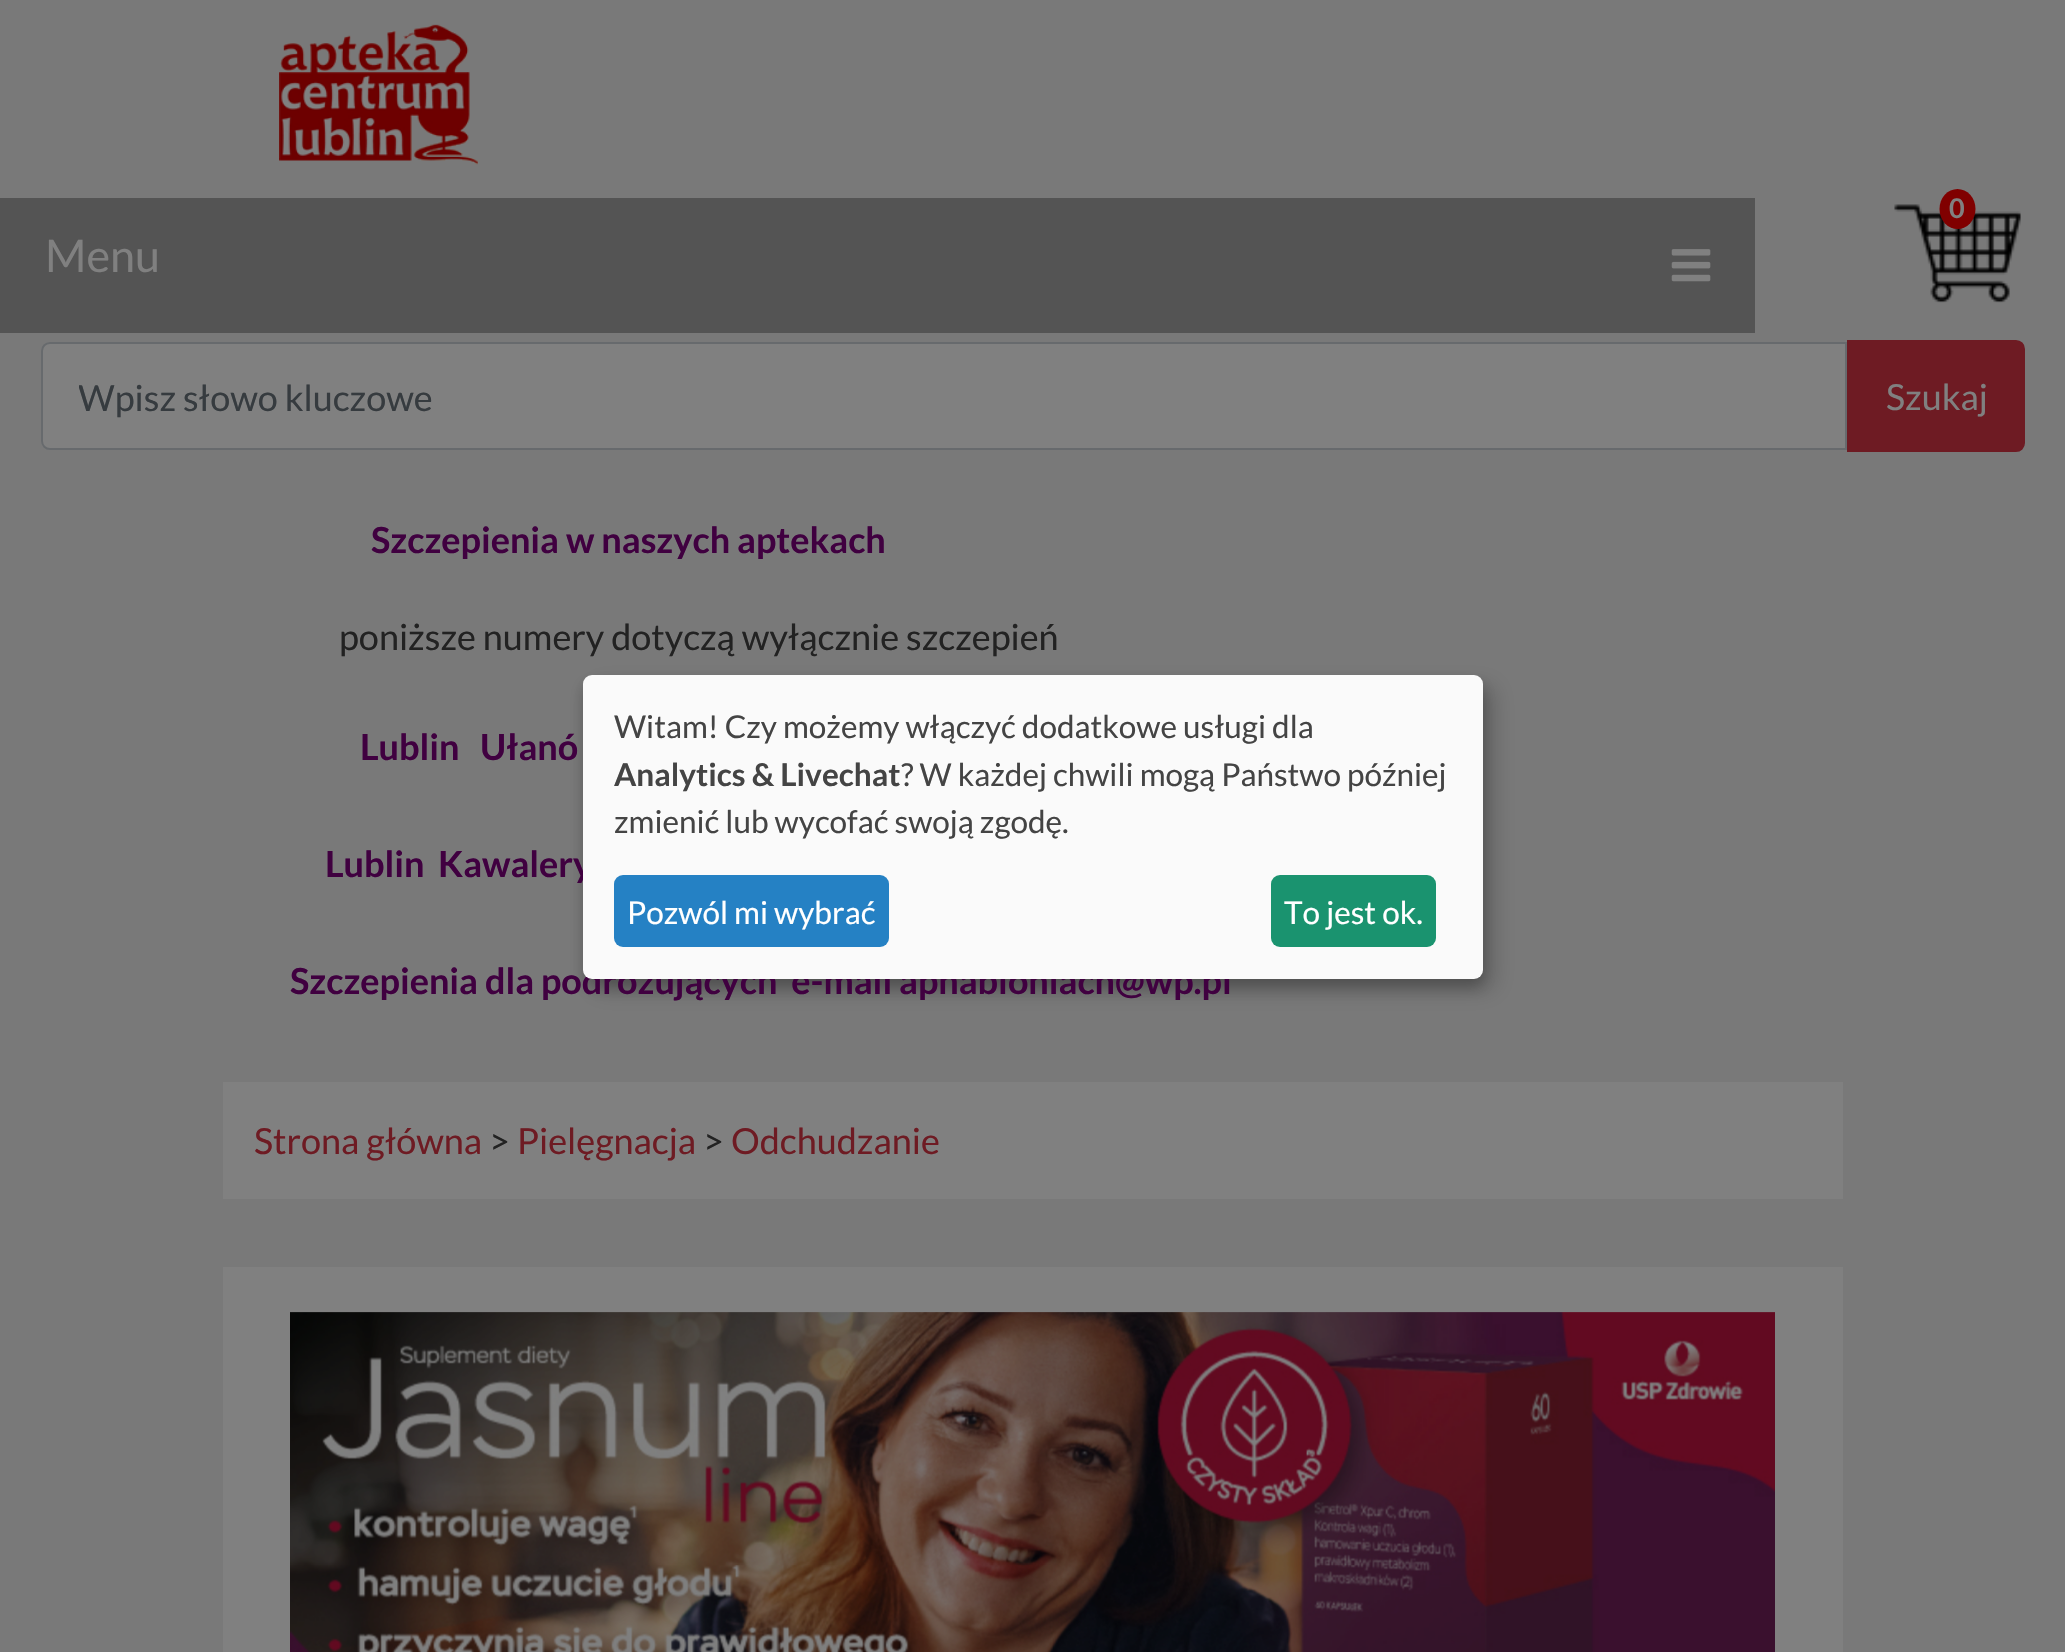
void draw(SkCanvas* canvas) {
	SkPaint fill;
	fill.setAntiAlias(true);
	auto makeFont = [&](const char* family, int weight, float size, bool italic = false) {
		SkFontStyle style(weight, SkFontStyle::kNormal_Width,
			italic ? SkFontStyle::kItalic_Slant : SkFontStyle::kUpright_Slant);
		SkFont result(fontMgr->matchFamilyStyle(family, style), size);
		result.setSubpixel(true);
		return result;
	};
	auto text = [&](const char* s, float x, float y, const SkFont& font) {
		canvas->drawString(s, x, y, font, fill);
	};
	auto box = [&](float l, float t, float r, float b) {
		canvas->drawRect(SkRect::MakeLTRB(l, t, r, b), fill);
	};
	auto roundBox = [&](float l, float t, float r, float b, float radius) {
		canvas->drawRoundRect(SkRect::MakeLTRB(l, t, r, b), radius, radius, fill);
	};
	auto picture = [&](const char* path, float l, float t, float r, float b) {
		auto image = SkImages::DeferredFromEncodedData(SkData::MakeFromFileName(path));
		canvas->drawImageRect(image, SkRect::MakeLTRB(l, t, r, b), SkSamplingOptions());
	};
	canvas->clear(0xFF797979);
	picture("image0.png", 279, 24, 478, 165);
	picture("image1.png", 1894, 204, 2021, 303);
	fill.setColor(0xFF800000);
	canvas->drawOval(SkRect::MakeLTRB(1939.5f, 189, 1975.5f, 229), fill);
	fill.setColor(0xFF545454);
	box(0, 198, 1755, 333);
	picture("image2.png", 1671, 249, 1711, 282);
	fill.setColor(0xFF808080);
	canvas->drawPath(SkPathBuilder().moveTo(50, 343).lineTo(1846, 343).lineTo(1846, 449).lineTo(50, 449).cubicTo(45.5f, 449, 42, 445.5f, 42, 441).lineTo(42, 351).cubicTo(42, 346.5f, 45.5f, 343, 50, 343).close().detach(), fill);
	fill.setStyle(SkPaint::kStroke_Style);
	fill.setStrokeWidth(2);
	fill.setColor(0xFF676A6D);
	canvas->drawPath(SkPathBuilder().moveTo(50, 343).lineTo(1846, 343).lineTo(1846, 449).lineTo(50, 449).cubicTo(45.5f, 449, 42, 445.5f, 42, 441).lineTo(42, 351).cubicTo(42, 346.5f, 45.5f, 343, 50, 343).close().detach(), fill);
	fill.setStyle(SkPaint::kFill_Style);
	fill.setColor(0xFF6E1B23);
	canvas->drawPath(SkPathBuilder().moveTo(1848, 341).lineTo(2016, 341).cubicTo(2020.5f, 341, 2024, 344.5f, 2024, 349).lineTo(2024, 443).cubicTo(2024, 447.5f, 2020.5f, 451, 2016, 451).lineTo(1848, 451).close().detach(), fill);
	fill.setStyle(SkPaint::kStroke_Style);
	canvas->drawPath(SkPathBuilder().moveTo(1848, 341).lineTo(2016, 341).cubicTo(2020.5f, 341, 2024, 344.5f, 2024, 349).lineTo(2024, 443).cubicTo(2024, 447.5f, 2020.5f, 451, 2016, 451).lineTo(1848, 451).close().detach(), fill);
	fill.setStyle(SkPaint::kFill_Style);
	fill.setColor(0x30000000);
	fill.setMaskFilter(SkMaskFilter::MakeBlur(kNormal_SkBlurStyle, 11));
	canvas->drawRoundRect(SkRect::MakeLTRB(594, 686, 1494, 990), 9, 9, fill);
	fill.setMaskFilter(nullptr);
	fill.setColor(0x33000000);
	fill.setMaskFilter(SkMaskFilter::MakeBlur(kNormal_SkBlurStyle, 7));
	canvas->drawRoundRect(SkRect::MakeLTRB(583, 684, 1483, 988), 9, 9, fill);
	fill.setMaskFilter(nullptr);
	fill.setColor(0xFF808080);
	box(223, 1082, 1843, 1199);
	box(223, 1267, 1843, 1652);
	picture("image3.png", 290, 1312, 1775, 1652);
	auto font1 = makeFont("Lato", 700, 27);
	text("0", 1949, 218, font1);
	auto font2 = makeFont("Lato", 400, 45);
	text("Menu", 45, 272, font2);
	canvas->save();
	canvas->clipRect(SkRect::MakeLTRB(79, 376, 1800, 419));
	auto font3 = makeFont("Lato", 400, 36);
	fill.setColor(0xFF363B3F);
	text("Wpisz słowo kluczowe", 78, 411, font3);
	canvas->restore();
	fill.setColor(0xFF808080);
	text("Szukaj", 1886, 410, font3);
	auto font4 = makeFont("Lato", 700, 36);
	fill.setColor(0xFF400040);
	text("Szczepienia w naszych aptekach", 371, 553, font4);
	fill.setColor(0xFF222222);
	text("poniższe numery dotyczą wyłącznie szczepień", 339, 650, font3);
	fill.setColor(0xFF400040);
	text("Lublin", 360, 760, font4);
	text("Ułanó", 480, 760, font4);
	text("Lublin", 325, 877, font4);
	text("Kawalery", 438, 877, font4);
	text("Szczepienia dla podróżujących  e-mail apnabloniach@wp.pl", 290, 994, font4);
	fill.setColor(0xFFFAFAFA);
	roundBox(583, 675, 1483, 979, 9);
	auto font5 = makeFont("Lato", 400, 31.5f);
	fill.setColor(0xFF444444);
	text("Witam! Czy możemy włączyć dodatkowe usługi dla", 614, 738, font5);
	auto font6 = makeFont("Lato", 700, 31.5f);
	text("Analytics & Livechat", 614, 786, font6);
	text("? W każdej chwili mogą Państwo później", 901, 786, font5);
	text("zmienić lub wycofać swoją zgodę.", 614, 833, font5);
	fill.setColor(0xFF2581C4);
	roundBox(614, 875, 889, 947, 9);
	fill.setColor(0xFFFFFFFF);
	text("Pozwól mi wybrać", 627, 924, font5);
	fill.setColor(0xFF1A936F);
	roundBox(1271, 875, 1436, 947, 9);
	fill.setColor(0xFFFFFFFF);
	text("To jest ok.", 1284, 924, font5);
	fill.setColor(0xFF6E1B23);
	text("Strona główna", 254, 1154, font3);
	fill.setColor(0xFF222222);
	text(">", 489, 1154, font3);
	fill.setColor(0xFF6E1B23);
	text("Pielęgnacja", 517, 1154, font3);
	fill.setColor(0xFF222222);
	text(">", 703, 1154, font3);
	fill.setColor(0xFF6E1B23);
	text("Odchudzanie", 731, 1154, font3);
}
